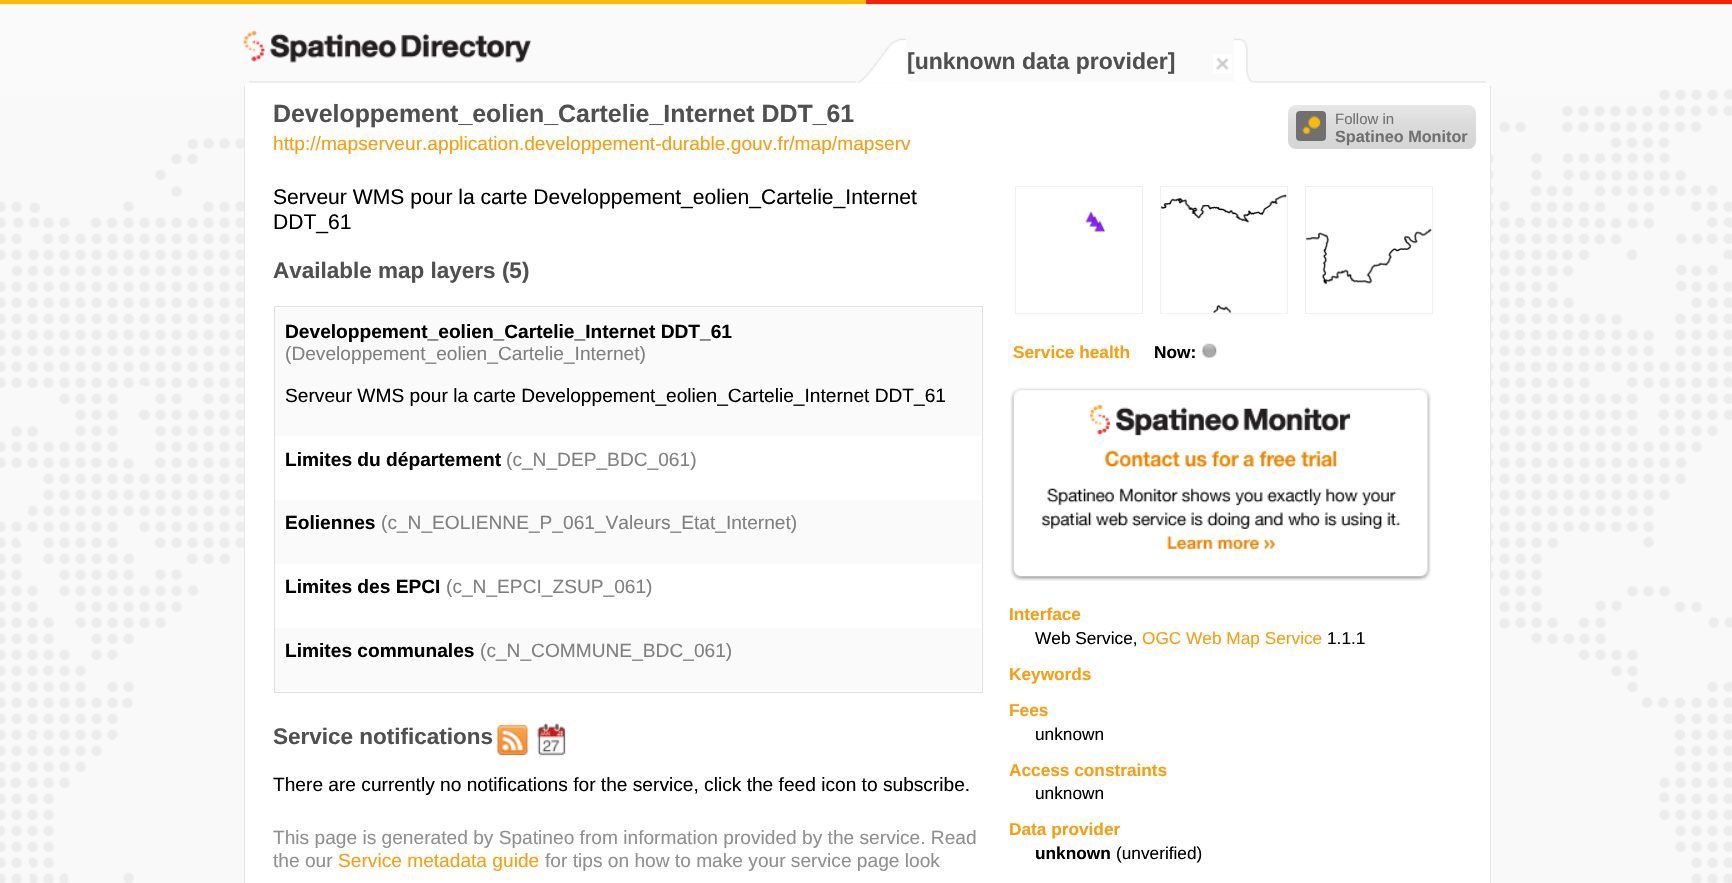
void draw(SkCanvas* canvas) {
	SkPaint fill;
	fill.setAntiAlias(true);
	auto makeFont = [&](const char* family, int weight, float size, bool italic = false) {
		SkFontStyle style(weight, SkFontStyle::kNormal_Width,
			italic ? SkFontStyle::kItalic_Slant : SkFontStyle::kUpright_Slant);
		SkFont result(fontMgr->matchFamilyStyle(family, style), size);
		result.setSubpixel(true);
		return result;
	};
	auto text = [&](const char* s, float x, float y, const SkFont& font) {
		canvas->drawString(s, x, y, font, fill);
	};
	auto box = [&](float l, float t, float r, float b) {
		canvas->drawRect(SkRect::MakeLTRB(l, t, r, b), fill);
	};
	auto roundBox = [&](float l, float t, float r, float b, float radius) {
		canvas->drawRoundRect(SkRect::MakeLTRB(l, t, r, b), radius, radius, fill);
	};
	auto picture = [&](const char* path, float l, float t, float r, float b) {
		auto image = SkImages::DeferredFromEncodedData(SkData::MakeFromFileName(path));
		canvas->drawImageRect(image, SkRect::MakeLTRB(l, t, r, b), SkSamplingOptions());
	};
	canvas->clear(0xFFFAFAFA);
	fill.setColor(0xFFFFBB00);
	box(0, 0, 866, 4);
	fill.setColor(0xFFF82200);
	box(866, 0, 1732, 4);
	picture("image0.png", 0, 89, 1732, 883);
	picture("image1.png", 243, 31, 532, 63);
	picture("image2.png", 857, 38, 907, 83);
	picture("image4.png", 1233, 38, 1254, 83);
	fill.setColor(0xFFFFFFFF);
	box(906, 82, 1234, 83);
	fill.setColor(0xFFFAFAFA);
	box(906, 39, 907, 40);
	box(1233, 39, 1234, 40);
	picture("image3.png", 1213, 54, 1232, 73);
	picture("image5.png", 249, 81, 856, 83);
	picture("image6.png", 1254, 81, 1486, 83);
	fill.setColor(0xFFFFFFFF);
	canvas->drawPath(SkPathBuilder().moveTo(250, 83).lineTo(1485, 83).cubicTo(1488.5f, 83, 1491, 85.5f, 1491, 89).lineTo(1491, 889).lineTo(244, 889).lineTo(244, 89).cubicTo(244, 85.5f, 246.5f, 83, 250, 83).close().detach(), fill);
	fill.setColor(0xFFE6E6E6);
	box(1490, 86, 1491, 883);
	box(244, 86, 245, 883);
	fill.setStyle(SkPaint::kStroke_Style);
	fill.setStrokeWidth(1);
	fill.setColor(0xFFDFDFDF);
	canvas->drawRect(SkRect::MakeLTRB(274.5f, 306.5f, 982.5f, 692.5f), fill);
	fill.setStyle(SkPaint::kFill_Style);
	fill.setColor(0xFFFAFAFA);
	box(275, 308, 981, 436);
	box(275, 500, 981, 564);
	box(275, 628, 981, 691);
	picture("image7.png", 497, 725, 528, 755);
	picture("image8.png", 537, 723, 566, 756);
	fill.setStyle(SkPaint::kStroke_Style);
	fill.setColor(0xFFEFEFEF);
	canvas->drawRect(SkRect::MakeLTRB(1015.5f, 186.5f, 1142.5f, 313.5f), fill);
	canvas->drawRect(SkRect::MakeLTRB(1160.5f, 186.5f, 1287.5f, 313.5f), fill);
	canvas->drawRect(SkRect::MakeLTRB(1305.5f, 186.5f, 1432.5f, 313.5f), fill);
	picture("image9.png", 1085, 211, 1106, 232);
	picture("image10.png", 1161, 194, 1287, 313);
	picture("image11.png", 1306, 228, 1432, 285);
	picture("image12.png", 1202, 343, 1217, 358);
	picture("image13.png", 1010, 387, 1431, 581);
	fill.setStyle(SkPaint::kFill_Style);
	{
		const SkColor colors[] = {0xFFE7E7E7, 0xFFDADADA, 0xFFD5D5D5};
		const float stops[] = {0, 0.5f, 1};
		const SkPoint ends[] = {{1382, 105}, {1382, 149}};
		fill.setShader(SkGradientShader::MakeLinear(ends, colors, stops, 3, SkTileMode::kClamp));
		fill.setAlpha(255);
	}
	roundBox(1288, 105, 1476, 149, 8);
	fill.setShader(nullptr);
	fill.setColor(0xFF707070);
	roundBox(1296, 111, 1326, 141, 4);
	picture("image14.png", 1302, 116, 1321, 134);
	auto font1 = makeFont("Liberation Sans", 700, 23);
	fill.setColor(0xFF505050);
	text("[unknown data provider]", 907, 69, font1);
	auto font2 = makeFont("Liberation Sans", 700, 24.9f);
	text("Developpement_eolien_Cartelie_Internet DDT_61", 273, 122, font2);
	auto font3 = makeFont("Liberation Sans", 400, 19.15f);
	fill.setColor(0xFFF99E0F);
	text("http://mapserveur.application.developpement-durable.gouv.fr/map/mapserv", 273, 150, font3);
	auto font4 = makeFont("Liberation Sans", 400, 21.1f);
	fill.setColor(0xFF000000);
	text("Serveur WMS pour la carte Developpement_eolien_Cartelie_Internet", 273, 204, font4);
	text("DDT_61", 273, 229, font4);
	auto font5 = makeFont("Liberation Sans", 700, 22.5f);
	fill.setColor(0xFF505050);
	text("Available map layers (5)", 273, 278, font5);
	auto font6 = makeFont("Liberation Sans", 700, 19.15f);
	fill.setColor(0xFF000000);
	text("Developpement_eolien_Cartelie_Internet DDT_61", 285, 338, font6);
	fill.setColor(0xFF808080);
	text("(Developpement_eolien_Cartelie_Internet)", 285, 360, font3);
	fill.setColor(0xFF000000);
	text("Serveur WMS pour la carte Developpement_eolien_Cartelie_Internet DDT_61", 285, 402, font3);
	text("Limites du département", 285, 466, font6);
	fill.setColor(0xFF808080);
	text("(c_N_DEP_BDC_061)", 506, 466, font3);
	fill.setColor(0xFF000000);
	text("Eoliennes", 285, 529, font6);
	fill.setColor(0xFF808080);
	text("(c_N_EOLIENNE_P_061_Valeurs_Etat_Internet)", 381, 529, font3);
	fill.setColor(0xFF000000);
	text("Limites des EPCI", 285, 593, font6);
	fill.setColor(0xFF808080);
	text("(c_N_EPCI_ZSUP_061)", 446, 593, font3);
	fill.setColor(0xFF000000);
	text("Limites communales", 285, 657, font6);
	fill.setColor(0xFF808080);
	text("(c_N_COMMUNE_BDC_061)", 480, 657, font3);
	fill.setColor(0xFF505050);
	text("Service notifications", 273, 744, font5);
	fill.setColor(0xFF000000);
	text("There are currently no notifications for the service, click the feed icon to subscribe.", 273, 791, font3);
	fill.setColor(0xFF909090);
	text("This page is generated by Spatineo from information provided by the service. Read", 273, 844, font3);
	text("the our", 273, 867, font3);
	fill.setColor(0xFFF99E0F);
	text("Service metadata guide", 338, 867, font3);
	fill.setColor(0xFF909090);
	text("for tips on how to make your service page look", 545, 867, font3);
	auto font7 = makeFont("Liberation Sans", 700, 17.25f);
	fill.setColor(0xFFF99E0F);
	text("Service health", 1013, 358, font7);
	fill.setColor(0xFF000000);
	text("Now:", 1154, 358, font7);
	fill.setColor(0xFFF99E0F);
	text("Interface", 1009, 620, font7);
	auto font8 = makeFont("Liberation Sans", 400, 17.25f);
	fill.setColor(0xFF000000);
	text("Web Service,", 1035, 644, font8);
	fill.setColor(0xFFF99E0F);
	text("OGC Web Map Service", 1142, 644, font8);
	fill.setColor(0xFF000000);
	text("1.1.1", 1327, 644, font8);
	fill.setColor(0xFFF99E0F);
	text("Keywords", 1009, 680, font7);
	text("Fees", 1009, 716, font7);
	fill.setColor(0xFF000000);
	text("unknown", 1035, 740, font8);
	fill.setColor(0xFFF99E0F);
	text("Access constraints", 1009, 776, font7);
	fill.setColor(0xFF000000);
	text("unknown", 1035, 799, font8);
	fill.setColor(0xFFF99E0F);
	text("Data provider", 1009, 835, font7);
	fill.setColor(0xFF000000);
	text("unknown", 1035, 859, font7);
	text("(unverified)", 1116, 859, font8);
	auto font9 = makeFont("Liberation Sans", 400, 15);
	fill.setColor(0xFF707070);
	text("Follow in", 1335, 124, font9);
	auto font10 = makeFont("Liberation Sans", 700, 16.25f);
	text("Spatineo Monitor", 1335, 142, font10);
}
